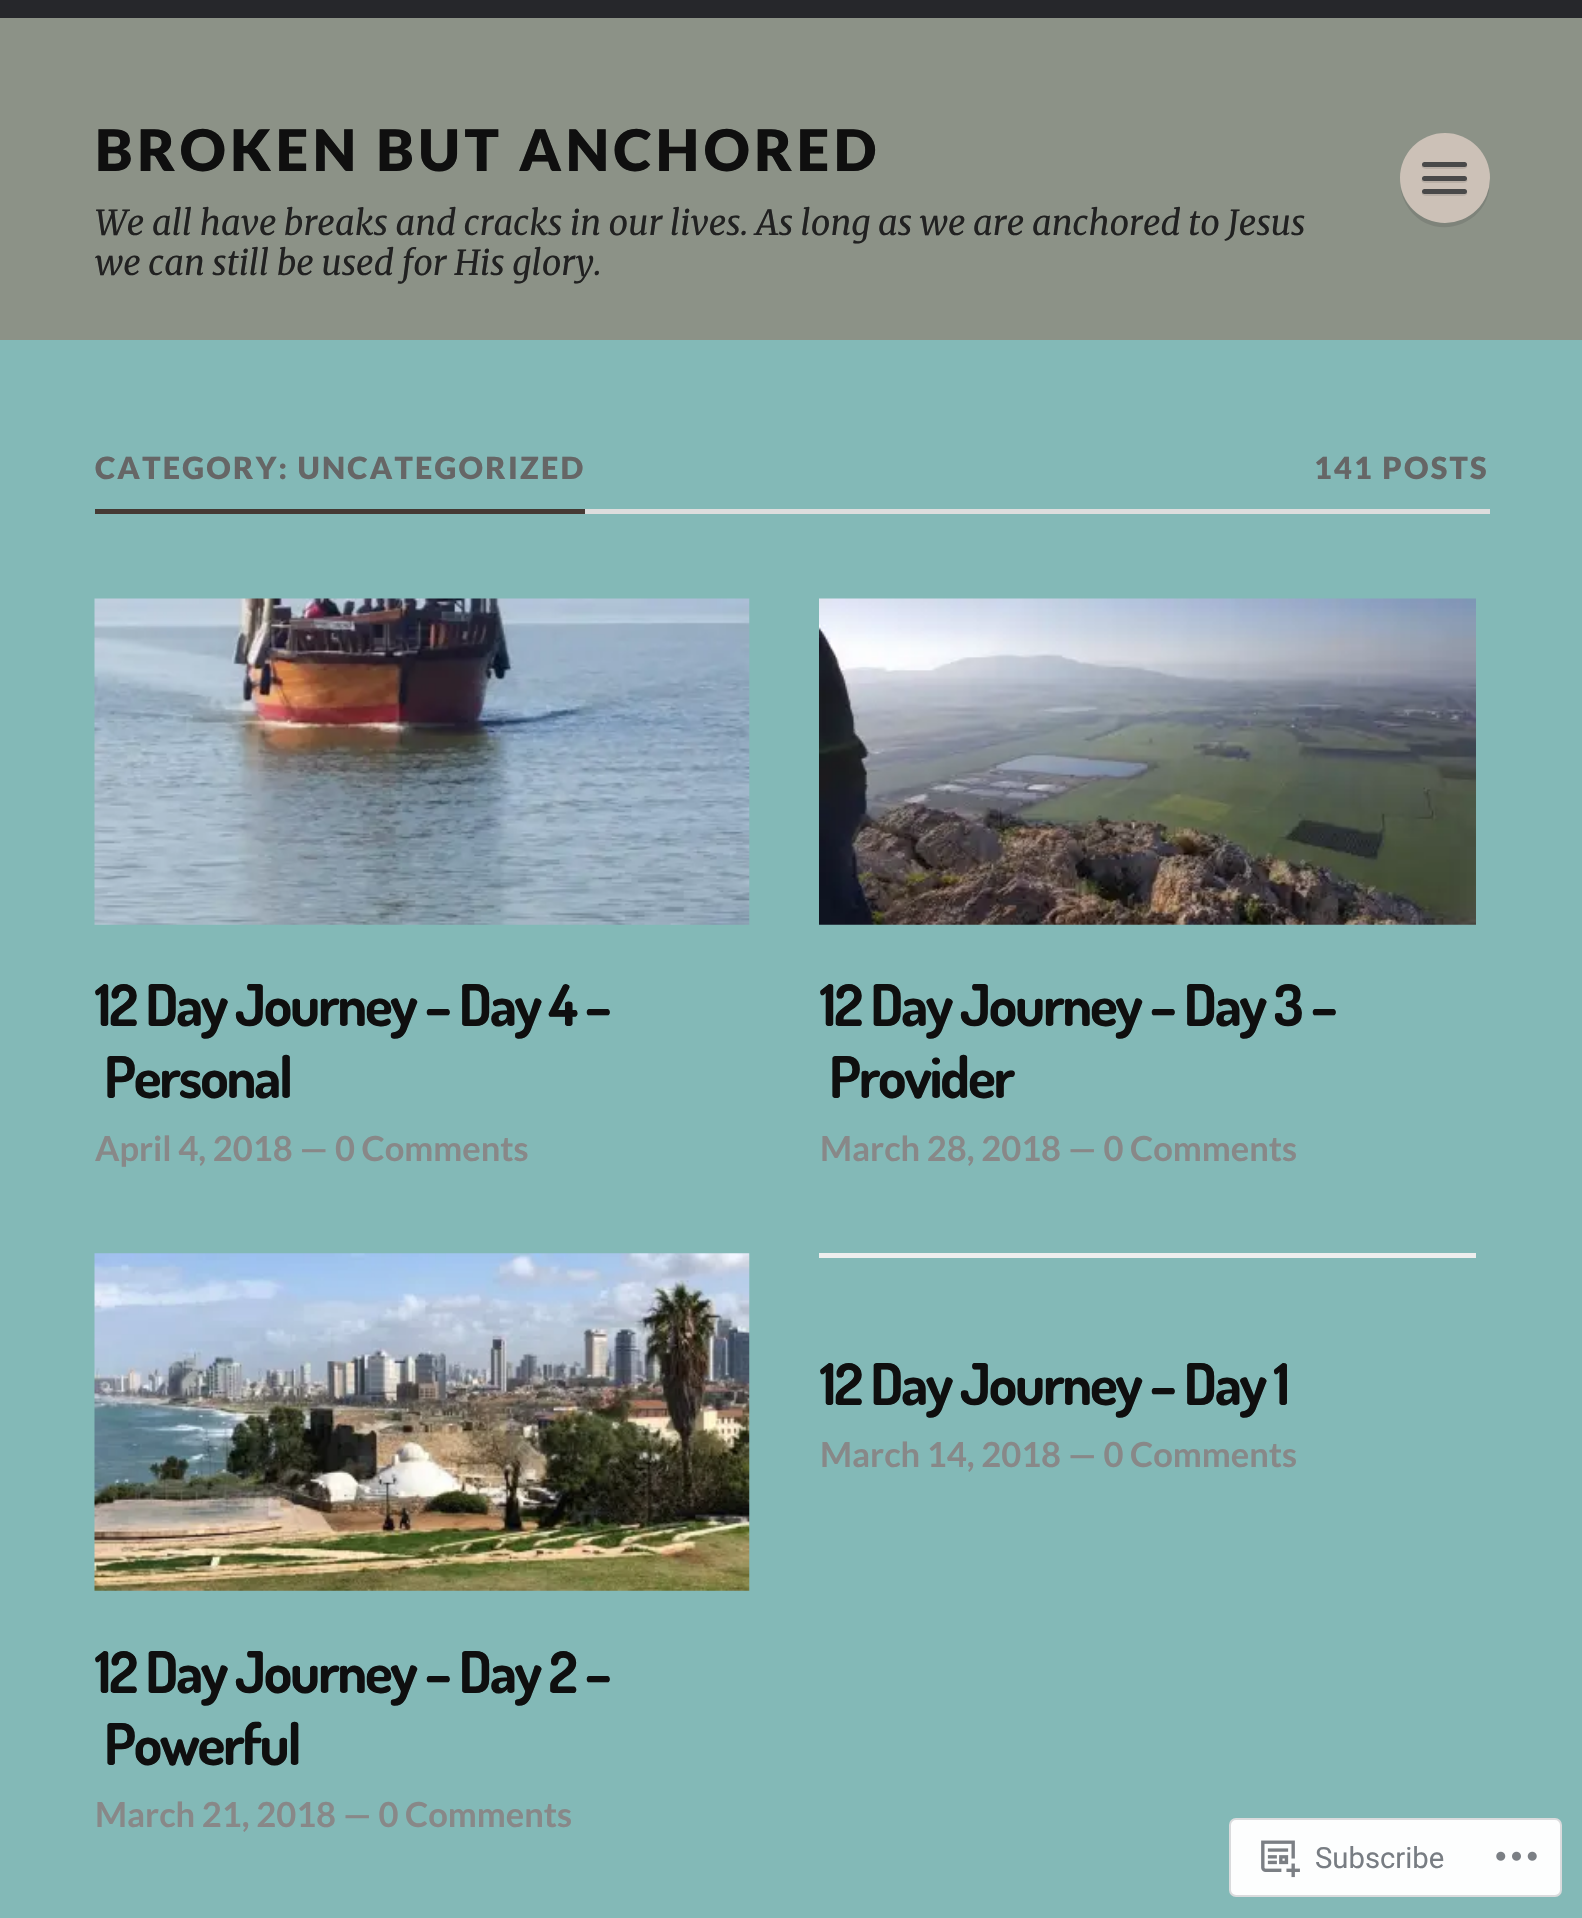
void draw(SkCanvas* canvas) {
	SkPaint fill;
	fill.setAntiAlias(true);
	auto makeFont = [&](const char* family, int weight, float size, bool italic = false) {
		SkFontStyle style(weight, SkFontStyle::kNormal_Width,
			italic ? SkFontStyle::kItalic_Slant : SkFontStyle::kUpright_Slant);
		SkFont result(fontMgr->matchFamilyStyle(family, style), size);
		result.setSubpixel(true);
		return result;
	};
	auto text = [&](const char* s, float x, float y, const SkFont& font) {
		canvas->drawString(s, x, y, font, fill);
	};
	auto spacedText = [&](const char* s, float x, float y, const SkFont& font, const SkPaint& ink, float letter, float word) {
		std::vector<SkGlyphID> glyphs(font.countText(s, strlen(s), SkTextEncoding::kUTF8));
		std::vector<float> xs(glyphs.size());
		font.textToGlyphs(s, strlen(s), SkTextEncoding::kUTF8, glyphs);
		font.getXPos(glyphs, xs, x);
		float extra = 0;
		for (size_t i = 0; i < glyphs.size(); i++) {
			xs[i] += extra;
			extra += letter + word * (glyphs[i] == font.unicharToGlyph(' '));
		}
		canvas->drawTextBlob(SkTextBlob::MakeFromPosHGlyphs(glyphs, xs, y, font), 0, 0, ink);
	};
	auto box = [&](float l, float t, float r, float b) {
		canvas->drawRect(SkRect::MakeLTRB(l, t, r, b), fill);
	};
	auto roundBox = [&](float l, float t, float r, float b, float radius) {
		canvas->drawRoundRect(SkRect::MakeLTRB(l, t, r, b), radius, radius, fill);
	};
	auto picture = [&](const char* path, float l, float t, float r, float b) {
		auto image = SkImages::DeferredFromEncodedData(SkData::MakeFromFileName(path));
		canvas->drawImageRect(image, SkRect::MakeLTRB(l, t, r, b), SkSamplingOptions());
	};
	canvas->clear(0xFF83B9B7);
	fill.setColor(0xFF8C9287);
	box(0, 18, 1582, 340);
	fill.setColor(0xFF26272B);
	box(0, 0, 1582, 18);
	fill.setColor(0xFF7E837A);
	canvas->drawPath(SkPathBuilder().moveTo(1400, 185).cubicTo(1401, 194, 1404, 202, 1409, 209).cubicTo(1437, 247, 1497, 221, 1489, 175).cubicTo(1490, 185, 1487, 195, 1482, 203).cubicTo(1459, 236, 1407, 225, 1400, 185).close().detach(), fill);
	fill.setColor(0xFFCCC1B7);
	canvas->drawCircle(1445, 178, 45, fill);
	fill.setColor(0xFFB8AEA5);
	canvas->drawPath(SkPathBuilder().moveTo(1422, 165).cubicTo(1420, 170, 1431, 169, 1431, 169).lineTo(1458, 169).cubicTo(1458, 169, 1469, 170, 1467, 165).lineTo(1465, 166).lineTo(1424, 166).close().detach(), fill);
	fill.setColor(0xFF494949);
	roundBox(1422, 162, 1467, 167, 2.5f);
	fill.setColor(0xFFB8AEA5);
	canvas->drawPath(SkPathBuilder().moveTo(1422, 179).cubicTo(1419, 184, 1431, 183, 1431, 183).lineTo(1458, 183).cubicTo(1458, 183, 1470, 184, 1467, 179).lineTo(1465, 180).lineTo(1424, 180).close().detach(), fill);
	fill.setColor(0xFF494949);
	roundBox(1422, 176, 1467, 181, 2.5f);
	fill.setColor(0xFFB8AEA5);
	canvas->drawPath(SkPathBuilder().moveTo(1422, 192).cubicTo(1420, 197, 1431, 196, 1431, 196).lineTo(1458, 196).cubicTo(1458, 196, 1469, 197, 1467, 192).lineTo(1465, 193).lineTo(1424, 193).close().detach(), fill);
	fill.setColor(0xFF494949);
	roundBox(1422, 189, 1467, 194, 2.5f);
	fill.setColor(0xFFDDDDDD);
	box(585, 509, 1490, 514);
	fill.setColor(0xFF453A34);
	box(95, 509, 585, 514);
	picture("image0.png", 94, 598, 750, 925);
	picture("image1.png", 819, 598, 1476, 925);
	fill.setColor(0xFFEEEEEE);
	box(819, 1253, 1476, 1258);
	picture("image2.png", 94, 1253, 750, 1591);
	fill.setColor(0xFFFDFEFE);
	canvas->drawRoundRect(SkRect::MakeLTRB(1230, 1819, 1561, 1896), 6, 6, fill);
	fill.setStyle(SkPaint::kStroke_Style);
	fill.setStrokeWidth(2);
	fill.setColor(0xFFDADBDD);
	canvas->drawRoundRect(SkRect::MakeLTRB(1230, 1819, 1561, 1896), 6, 6, fill);
	picture("image3.png", 1261, 1840, 1300, 1878);
	picture("image4.png", 1496, 1851, 1537, 1861);
	auto font1 = makeFont("Lato", 900, 57.4f);
	fill.setStyle(SkPaint::kFill_Style);
	fill.setColor(0xFF0F0F0F);
	spacedText("BROKEN BUT ANCHORED", 95, 171, font1, fill, 4.5f, 0);
	auto font2 = makeFont("Merriweather", 300, 34.45f, true);
	fill.setColor(0xFF212121);
	text("We all have breaks and cracks in our lives. As long as we are anchored to Jesus", 95, 235, font2);
	text("we can still be used for His glory.", 95, 275, font2);
	auto font3 = makeFont("Lato", 900, 30.6f);
	fill.setColor(0xFF666666);
	spacedText("CATEGORY: UNCATEGORIZED", 95, 479, font3, fill, 2.25f, 0);
	spacedText("141 POSTS", 1314, 479, font3, fill, 2.25f, 0);
	auto font4 = makeFont("Dosis", 700, 57.4f);
	fill.setColor(0xFF0F0F0F);
	spacedText("12 Day Journey – Day 4 –", 95, 1026, font4, fill, -2.25f, 0);
	spacedText("Personal", 104, 1098, font4, fill, -2.25f, 0);
	auto font5 = makeFont("Lato", 700, 34.45f);
	fill.setColor(0xFF888888);
	text("April 4, 2018 — 0 Comments", 95, 1161, font5);
	fill.setColor(0xFF0F0F0F);
	spacedText("12 Day Journey – Day 3 –", 820, 1026, font4, fill, -2.25f, 0);
	spacedText("Provider", 829, 1098, font4, fill, -2.25f, 0);
	fill.setColor(0xFF888888);
	text("March 28, 2018 — 0 Comments", 820, 1161, font5);
	fill.setColor(0xFF0F0F0F);
	spacedText("12 Day Journey – Day 1", 820, 1405, font4, fill, -2.25f, 0);
	fill.setColor(0xFF888888);
	text("March 14, 2018 — 0 Comments", 820, 1467, font5);
	fill.setColor(0xFF0F0F0F);
	spacedText("12 Day Journey – Day 2 –", 95, 1693, font4, fill, -2.25f, 0);
	spacedText("Powerful", 104, 1765, font4, fill, -2.25f, 0);
	fill.setColor(0xFF888888);
	text("March 21, 2018 — 0 Comments", 95, 1827, font5);
	auto font6 = makeFont("Roboto", 400, 29.25f);
	fill.setColor(0xFF787D83);
	text("Subscribe", 1315, 1868, font6);
}
